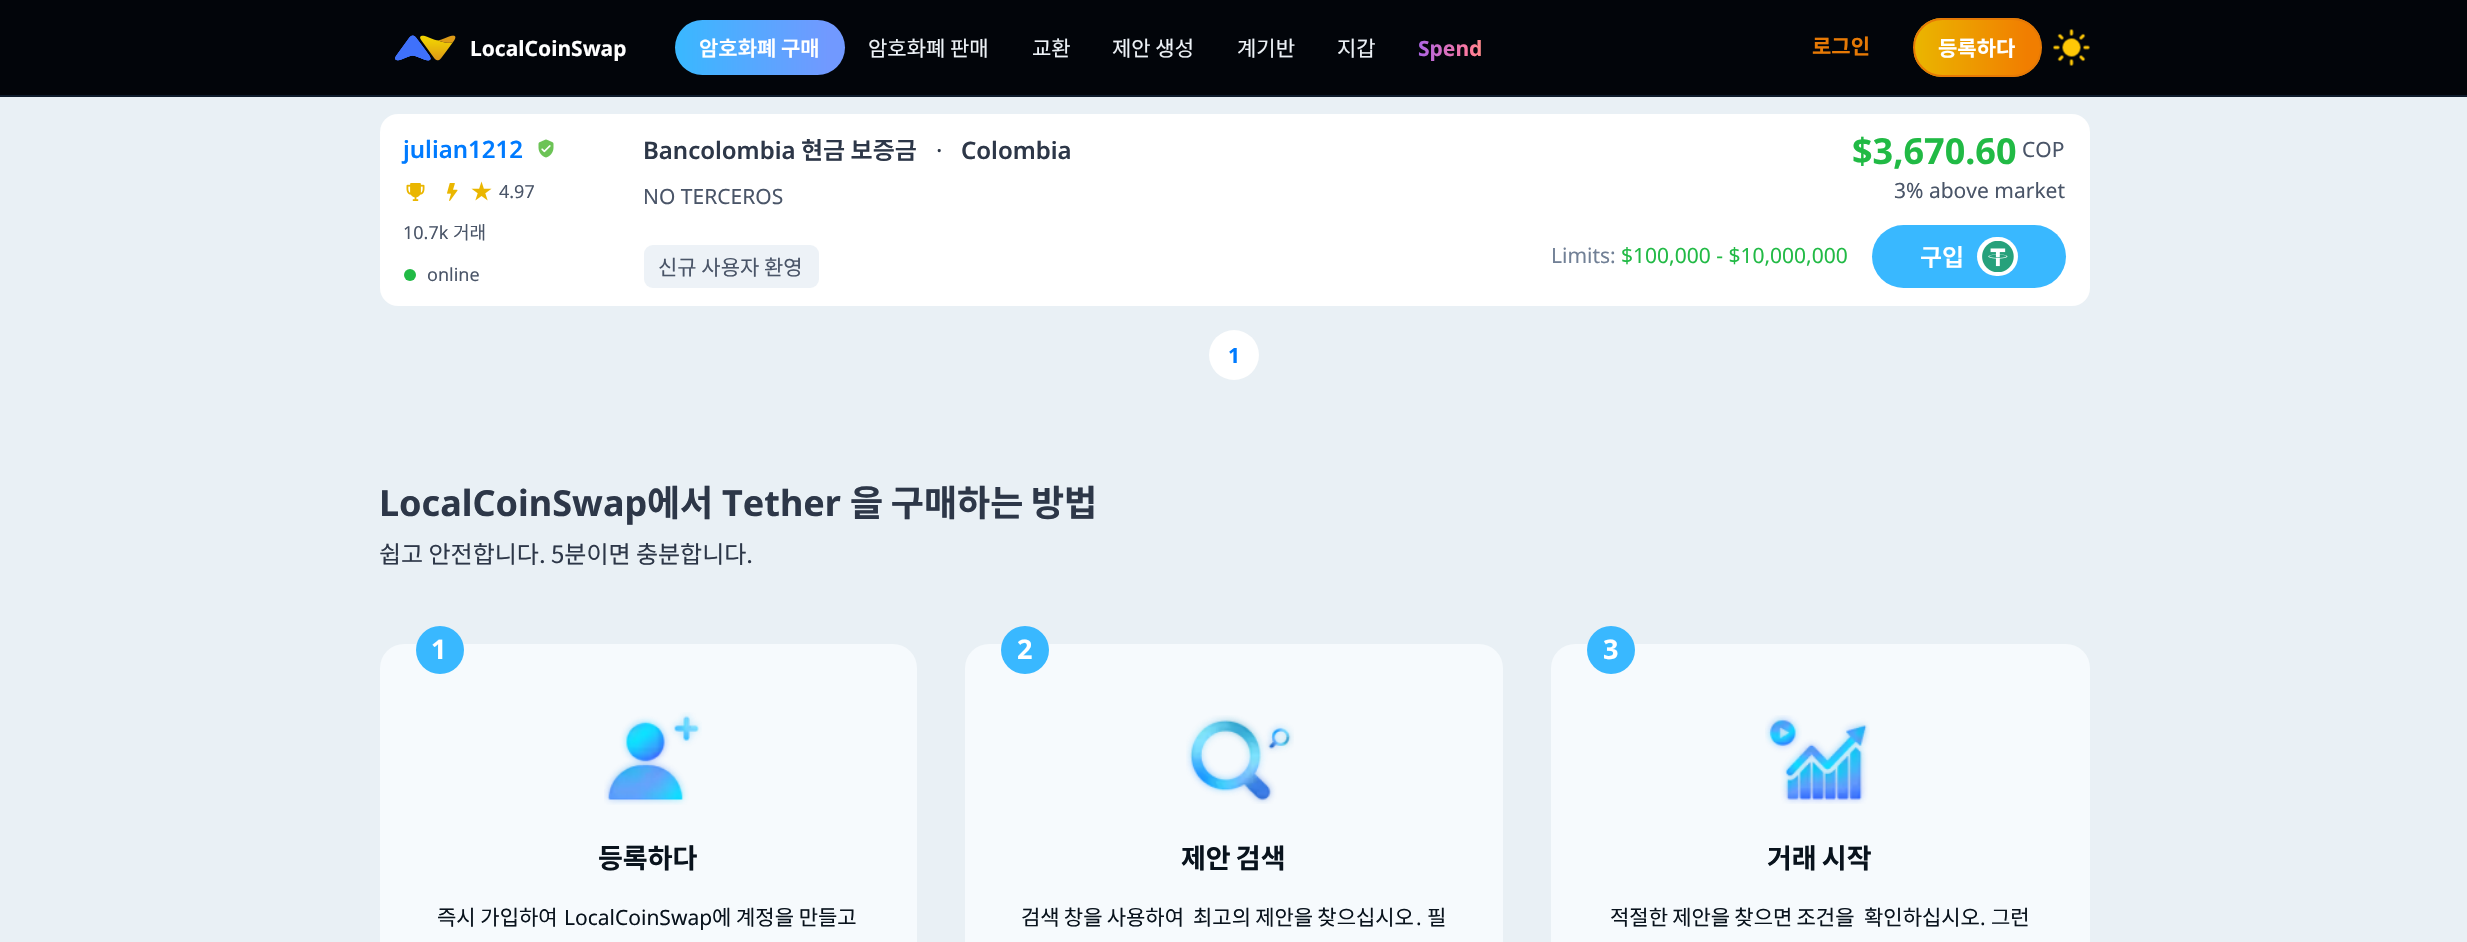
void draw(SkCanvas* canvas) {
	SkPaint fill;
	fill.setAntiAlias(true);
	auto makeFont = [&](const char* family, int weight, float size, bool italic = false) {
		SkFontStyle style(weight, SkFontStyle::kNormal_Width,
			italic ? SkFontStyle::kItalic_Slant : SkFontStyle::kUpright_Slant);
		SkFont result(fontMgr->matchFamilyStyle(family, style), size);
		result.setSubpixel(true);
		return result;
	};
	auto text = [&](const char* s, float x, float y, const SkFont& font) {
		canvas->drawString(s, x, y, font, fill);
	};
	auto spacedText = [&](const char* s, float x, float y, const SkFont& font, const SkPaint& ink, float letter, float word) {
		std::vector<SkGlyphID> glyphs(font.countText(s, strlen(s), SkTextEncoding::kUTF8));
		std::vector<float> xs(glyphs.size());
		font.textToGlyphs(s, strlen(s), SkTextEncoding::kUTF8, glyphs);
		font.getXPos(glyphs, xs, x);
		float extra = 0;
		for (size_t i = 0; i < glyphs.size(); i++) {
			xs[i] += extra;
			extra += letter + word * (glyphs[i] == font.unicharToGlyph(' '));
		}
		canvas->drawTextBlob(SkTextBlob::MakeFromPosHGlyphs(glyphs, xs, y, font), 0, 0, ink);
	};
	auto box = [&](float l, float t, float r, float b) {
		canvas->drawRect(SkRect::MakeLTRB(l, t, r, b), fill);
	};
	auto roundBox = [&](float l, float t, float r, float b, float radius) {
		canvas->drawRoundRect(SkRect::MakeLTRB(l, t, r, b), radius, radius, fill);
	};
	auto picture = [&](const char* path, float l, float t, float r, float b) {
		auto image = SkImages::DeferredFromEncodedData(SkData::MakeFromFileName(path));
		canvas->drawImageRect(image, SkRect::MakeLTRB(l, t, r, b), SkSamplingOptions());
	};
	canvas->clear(0xFFE9F0F5);
	fill.setColor(0xFF02050A);
	box(0, 0, 2467, 95);
	fill.setColor(0xFF0F1C2C);
	box(0, 95, 2467, 97);
	picture("image0.png", 395, 35, 456, 61);
	{
		const SkColor colors[] = {0xFF39B8FF, 0xFF7199FF};
		const float stops[] = {0, 0.9f};
		const SkPoint ends[] = {{675, 47}, {845, 47}};
		fill.setShader(SkGradientShader::MakeLinear(ends, colors, stops, 2, SkTileMode::kClamp));
		fill.setAlpha(255);
	}
	roundBox(675, 20, 845, 75, 27.5f);
	canvas->save();
	canvas->clipPath(SkPathBuilder().moveTo(1942.5f, 18).lineTo(2012.5f, 18).cubicTo(2029, 18, 2042, 31, 2042, 47.5f).cubicTo(2042, 64, 2029, 77, 2012.5f, 77).lineTo(1942.5f, 77).cubicTo(1926, 77, 1913, 64, 1913, 47.5f).cubicTo(1913, 31, 1926, 18, 1942.5f, 18).close().detach(), true);
	{
		const SkColor colors[] = {0xFFEAB600, 0xFFF17E00};
		const float stops[] = {0, 0.9f};
		const SkPoint ends[] = {{1914, 47}, {2040, 47}};
		fill.setShader(SkGradientShader::MakeLinear(ends, colors, stops, 2, SkTileMode::kClamp));
		fill.setAlpha(255);
	}
	box(1914, 18, 2040, 77);
	canvas->restore();
	fill.setStyle(SkPaint::kStroke_Style);
	fill.setStrokeWidth(2);
	fill.setShader(nullptr);
	fill.setColor(0xFFE67905);
	canvas->drawRoundRect(SkRect::MakeLTRB(1914, 19, 2041, 76), 28.5f, 28.5f, fill);
	picture("image1.png", 2053, 29, 2090, 66);
	fill.setStyle(SkPaint::kFill_Style);
	fill.setColor(0xFFFFFFFF);
	roundBox(380, 114, 2090, 306, 18);
	picture("image2.png", 538, 139, 554, 158);
	picture("image3.png", 406, 183, 425, 201);
	picture("image4.png", 447, 183, 458, 201);
	picture("image5.png", 471, 181, 492, 201);
	fill.setColor(0xFF21BA45);
	canvas->drawCircle(410, 275, 6, fill);
	fill.setColor(0xFFEDF2F7);
	roundBox(644, 245, 819, 288, 9);
	fill.setColor(0xFF39B8FF);
	roundBox(1872, 225, 2066, 288, 31.5f);
	fill.setColor(0xFFFFFFFF);
	roundBox(1977, 237, 2018, 276, 19.5f);
	picture("image6.png", 1982, 241, 2014, 272);
	canvas->drawCircle(1234, 355, 25, fill);
	fill.setColor(0xFFF6FAFD);
	roundBox(380, 644, 917, 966, 24);
	fill.setColor(0xFF39B8FF);
	canvas->drawCircle(440, 650, 24, fill);
	picture("image7.png", 604, 712, 702, 805);
	fill.setColor(0xFFF6FAFD);
	roundBox(965, 644, 1503, 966, 24);
	fill.setColor(0xFF39B8FF);
	canvas->drawCircle(1025, 650, 24, fill);
	picture("image8.png", 1186, 715, 1294, 804);
	fill.setColor(0xFFF6FAFD);
	roundBox(1551, 644, 2090, 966, 24);
	fill.setColor(0xFF39B8FF);
	canvas->drawCircle(1611, 650, 24, fill);
	picture("image9.png", 1765, 715, 1870, 804);
	auto font1 = makeFont("Noto Sans", 700, 21);
	fill.setColor(0xFFFFFFFF);
	text("LocalCoinSwap", 470, 56, font1);
	auto font2 = makeFont("Noto Sans KR", 600, 21);
	text("암호화폐 구매", 699, 56, font2);
	auto font3 = makeFont("Noto Sans KR", 400, 21);
	fill.setColor(0xFFEDF2F7);
	text("암호화폐 판매", 868, 56, font3);
	text("교환", 1032, 56, font3);
	text("제안 생성", 1112, 56, font3);
	text("계기반", 1237, 56, font3);
	text("지갑", 1337, 56, font3);
	{
		const SkColor colors[] = {0xFF905DFF, 0xFFFE799D, 0xFFFFA56B};
		const float stops[] = {0, 0.7f, 1};
		const SkPoint ends[] = {{1400, 47}, {1500, 47}};
		fill.setShader(SkGradientShader::MakeLinear(ends, colors, stops, 3, SkTileMode::kClamp));
		fill.setAlpha(255);
	}
	text("Spend", 1418, 56, font1);
	auto font4 = makeFont("Noto Sans KR", 700, 21);
	fill.setShader(nullptr);
	fill.setColor(0xFFE67905);
	text("로그인", 1812, 54, font4);
	fill.setColor(0xFFFFFFFF);
	text("등록하다", 1938, 56, font4);
	auto font5 = makeFont("Noto Sans", 600, 24);
	fill.setColor(0xFF007BFF);
	text("julian1212", 403, 158, font5);
	auto font6 = makeFont("Noto Sans", 400, 18);
	fill.setColor(0xFF4A5568);
	text("4.97", 499, 198, font6);
	text("10.7k", 403, 239, font6);
	auto font7 = makeFont("Noto Sans KR", 400, 18);
	text("거래", 453, 239, font7);
	text("online", 427, 281, font6);
	fill.setColor(0xFF2D3748);
	text("Bancolombia", 643, 159, font5);
	auto font8 = makeFont("Noto Sans KR", 600, 24);
	text("현금 보증금", 801, 159, font8);
	auto font9 = makeFont("Noto Sans", 400, 24);
	text("·", 936, 159, font9);
	text("Colombia", 961, 159, font5);
	auto font10 = makeFont("Noto Sans", 400, 21);
	fill.setColor(0xFF4A5568);
	text("NO TERCEROS", 643, 204, font10);
	text("신규 사용자 환영", 658, 275, font3);
	auto font11 = makeFont("Noto Sans", 700, 36);
	fill.setColor(0xFF21BA45);
	text("$3,670.60", 1852, 164, font11);
	fill.setColor(0xFF4A5568);
	text("COP", 2022, 157, font10);
	text("3% above market", 1894, 198, font10);
	fill.setColor(0xFF718096);
	text("Limits:", 1551, 263, font10);
	fill.setColor(0xFF21BA45);
	text("$100,000 - $10,000,000", 1621, 263, font10);
	fill.setColor(0xFFFFFFFF);
	text("구입", 1920, 266, font8);
	fill.setColor(0xFF007BFF);
	text("1", 1228, 363, font1);
	fill.setColor(0xFF2D3748);
	text("LocalCoinSwap", 379, 516, font11);
	auto font12 = makeFont("Noto Sans KR", 700, 36);
	text("에서", 647, 516, font12);
	text("Tether", 722, 516, font11);
	spacedText("을 구매하는 방법", 850, 516, font12, fill, 0, -0.5f);
	auto font13 = makeFont("Noto Sans KR", 400, 24);
	text("쉽고 안전합니다. 5분이면 충분합니다.", 379, 563, font13);
	auto font14 = makeFont("Noto Sans", 700, 27);
	fill.setColor(0xFFFFFFFF);
	text("1", 431, 659, font14);
	auto font15 = makeFont("Noto Sans KR", 700, 27);
	fill.setColor(0xFF09131D);
	text("등록하다", 598, 868, font15);
	text("즉시 가입하여", 437, 925, font3);
	text("LocalCoinSwap", 564, 925, font10);
	text("에 계정을 만들고", 712, 925, font3);
	fill.setColor(0xFFFFFFFF);
	text("2", 1017, 659, font14);
	fill.setColor(0xFF09131D);
	spacedText("제안 검색", 1181, 868, font15, fill, 0, -1);
	spacedText("검색 창을 사용하여", 1021, 925, font3, fill, 0, -0.5f);
	spacedText("최고의 제안을 찾으십시오", 1193, 925, font3, fill, 0, -0.5f);
	text(".", 1416, 925, font10);
	text("필", 1427, 925, font3);
	fill.setColor(0xFFFFFFFF);
	text("3", 1603, 659, font14);
	fill.setColor(0xFF09131D);
	spacedText("거래 시작", 1767, 868, font15, fill, 0, -1);
	spacedText("적절한 제안을 찾으면 조건을", 1610, 925, font3, fill, 0, -0.5f);
	spacedText("확인하십시오", 1864, 925, font3, fill, 0, -0.5f);
	text(".", 1980, 925, font10);
	text("그런", 1991, 925, font3);
}
